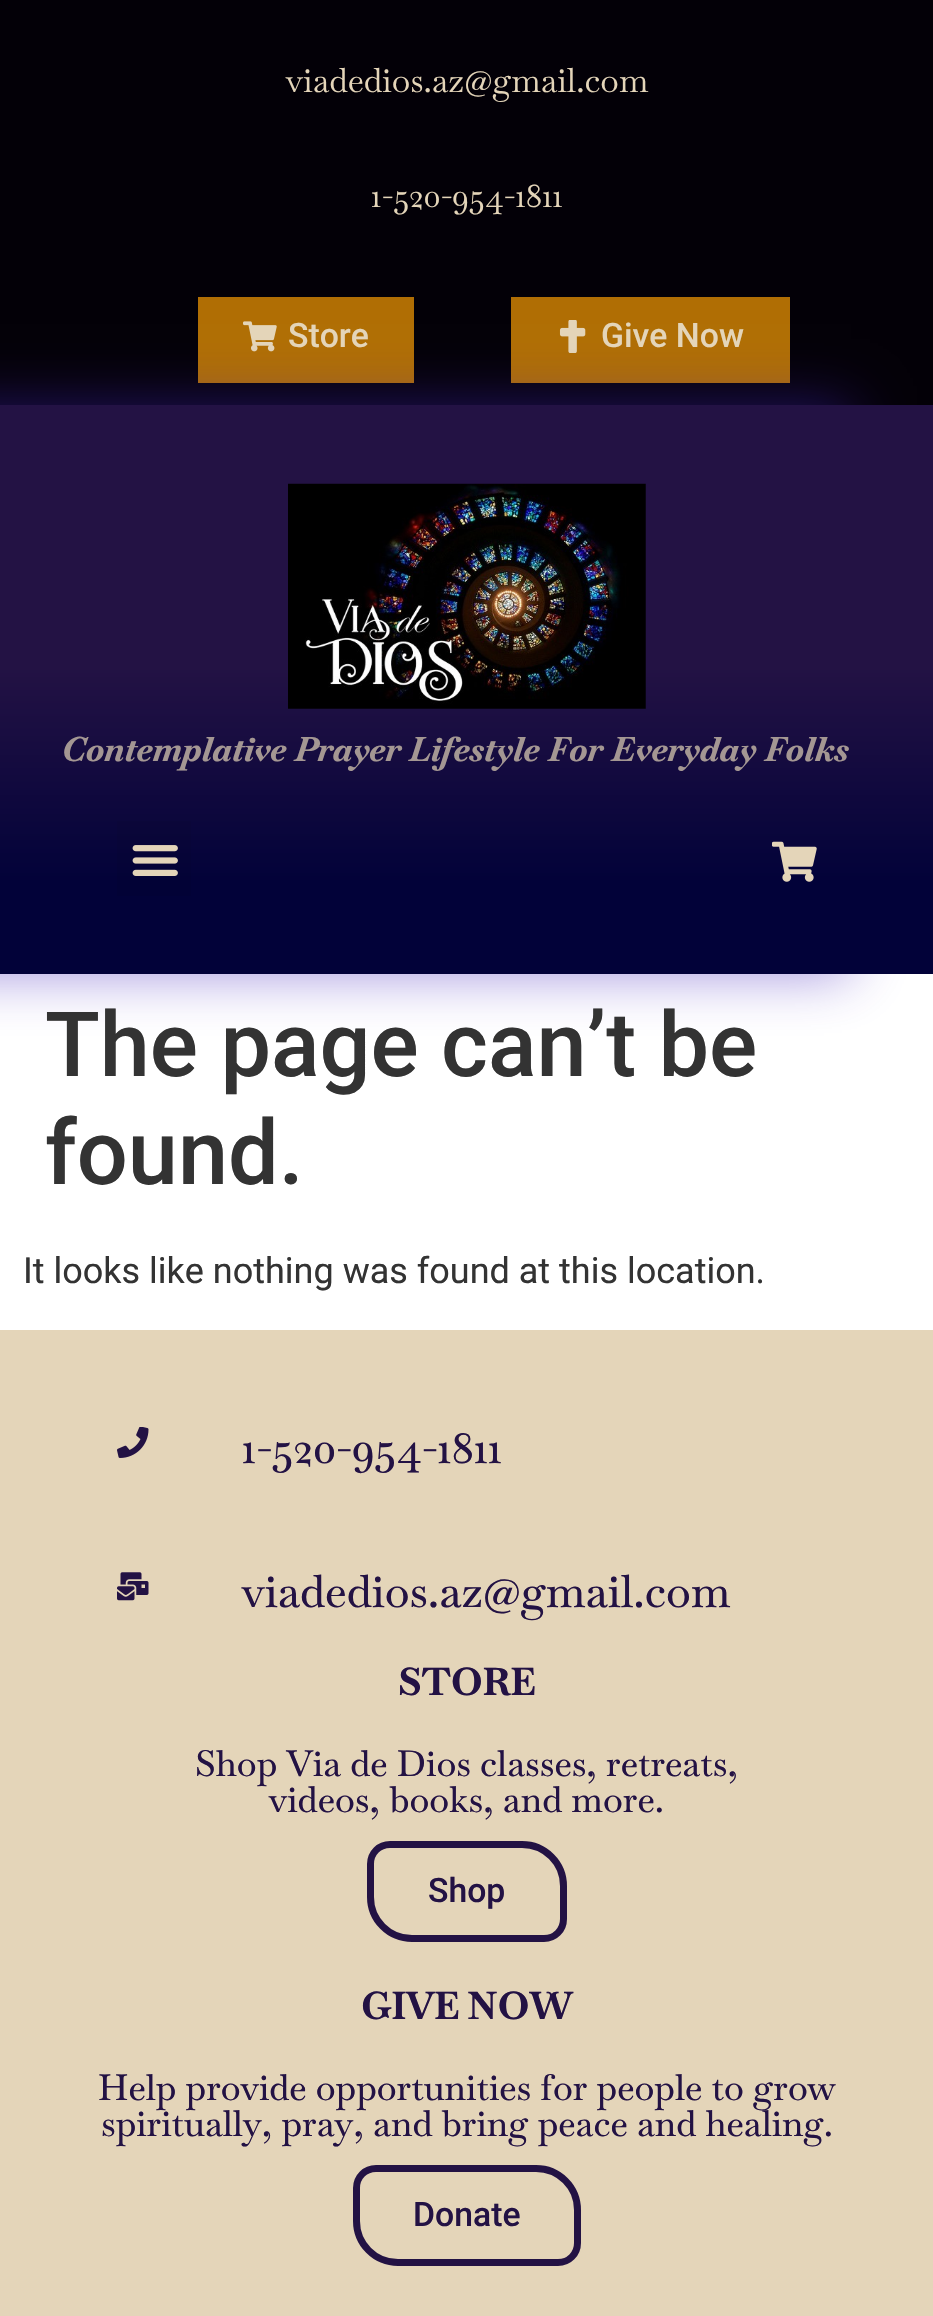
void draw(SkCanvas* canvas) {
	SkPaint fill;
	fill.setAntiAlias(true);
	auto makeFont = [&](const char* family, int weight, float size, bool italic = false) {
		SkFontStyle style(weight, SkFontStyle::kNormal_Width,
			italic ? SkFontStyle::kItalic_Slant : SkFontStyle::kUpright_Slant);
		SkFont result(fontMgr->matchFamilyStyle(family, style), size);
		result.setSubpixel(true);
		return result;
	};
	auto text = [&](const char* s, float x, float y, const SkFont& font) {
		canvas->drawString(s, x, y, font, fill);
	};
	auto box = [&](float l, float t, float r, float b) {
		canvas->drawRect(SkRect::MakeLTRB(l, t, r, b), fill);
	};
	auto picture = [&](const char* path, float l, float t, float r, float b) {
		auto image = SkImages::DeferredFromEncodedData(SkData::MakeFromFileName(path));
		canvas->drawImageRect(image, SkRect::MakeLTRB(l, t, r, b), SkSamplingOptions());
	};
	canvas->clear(0xFFFFFFFF);
	fill.setColor(0xFF030007);
	box(0, 0, 933, 405);
	fill.setColor(0xFFB06E04);
	box(198, 297, 414, 383);
	picture("image0.png", 243, 321, 277, 352);
	box(511, 297, 790, 383);
	picture("image1.png", 559, 320, 586, 353);
	fill.setColor(0x804224BC);
	fill.setMaskFilter(SkMaskFilter::MakeBlur(kNormal_SkBlurStyle, 27));
	canvas->drawRect(SkRect::MakeLTRB(-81, 405, 851, 974), fill);
	fill.setMaskFilter(nullptr);
	{
		const SkColor colors[] = {0xFF231244, 0xFF020239};
		const float stops[] = {0.46f, 0.84f};
		const SkPoint ends[] = {{467, 405}, {467, 974}};
		fill.setShader(SkGradientShader::MakeLinear(ends, colors, stops, 2, SkTileMode::kClamp));
		fill.setAlpha(255);
	}
	box(0, 405, 933, 974);
	picture("image2.png", 288, 483, 646, 709);
	fill.setShader(nullptr);
	fill.setColor(0x0D000000);
	box(117, 821, 191, 896);
	picture("image3.png", 132, 845, 178, 876);
	picture("image4.png", 772, 841, 817, 882);
	fill.setColor(0xFFE4D5B9);
	box(0, 1330, 933, 2316);
	picture("image5.png", 117, 1427, 149, 1458);
	picture("image6.png", 117, 1572, 149, 1601);
	fill.setStyle(SkPaint::kStroke_Style);
	fill.setStrokeWidth(7);
	fill.setColor(0xFF231244);
	canvas->drawPath(SkPathBuilder().moveTo(390, 1844.5f).lineTo(522, 1844.5f).cubicTo(545, 1844.5f, 563.5f, 1863, 563.5f, 1886).lineTo(563.5f, 1919).cubicTo(563.5f, 1930, 555, 1938.5f, 544, 1938.5f).lineTo(412, 1938.5f).cubicTo(389, 1938.5f, 370.5f, 1920, 370.5f, 1897).lineTo(370.5f, 1864).cubicTo(370.5f, 1853, 379, 1844.5f, 390, 1844.5f).close().detach(), fill);
	canvas->drawPath(SkPathBuilder().moveTo(376, 2168.5f).lineTo(536, 2168.5f).cubicTo(559, 2168.5f, 577.5f, 2187, 577.5f, 2210).lineTo(577.5f, 2243).cubicTo(577.5f, 2254, 569, 2262.5f, 558, 2262.5f).lineTo(398, 2262.5f).cubicTo(375, 2262.5f, 356.5f, 2244, 356.5f, 2221).lineTo(356.5f, 2188).cubicTo(356.5f, 2177, 365, 2168.5f, 376, 2168.5f).close().detach(), fill);
	auto font1 = makeFont("Baskervville", 400, 33.75f);
	fill.setStyle(SkPaint::kFill_Style);
	fill.setColor(0xFFE4D5B9);
	text("viadedios.az@gmail.com", 286, 92, font1);
	text("1-520-954-1811", 371, 207, font1);
	auto font2 = makeFont("Roboto", 500, 33.75f);
	text("Store", 288, 347, font2);
	text("Give Now", 601, 347, font2);
	auto font3 = makeFont("Baskervville", 700, 33.75f, true);
	fill.setColor(0xFFA49793);
	text("Contemplative Prayer Lifestyle For Everyday Folks", 62, 761, font3);
	auto font4 = makeFont("Roboto", 500, 90);
	fill.setColor(0xFF333333);
	text("The page can’t be", 45, 1076, font4);
	text("found.", 45, 1184, font4);
	auto font5 = makeFont("Roboto", 400, 36);
	text("It looks like nothing was found at this location.", 23, 1283, font5);
	auto font6 = makeFont("Baskervville", 500, 45);
	fill.setColor(0xFF231244);
	text("1-520-954-1811", 242, 1463, font6);
	text("viadedios.az@gmail.com", 242, 1607, font6);
	auto font7 = makeFont("Baskervville", 700, 38.25f);
	text("STORE", 398, 1695, font7);
	auto font8 = makeFont("Baskervville", 500, 36);
	text("Shop Via de Dios classes, retreats,", 195, 1776, font8);
	text("videos, books, and more.", 269, 1812, font8);
	text("Shop", 428, 1902, font2);
	text("GIVE NOW", 361, 2019, font7);
	text("Help provide opportunities for people to grow", 98, 2100, font8);
	text("spiritually, pray, and bring peace and healing.", 101, 2136, font8);
	text("Donate", 413, 2226, font2);
}
